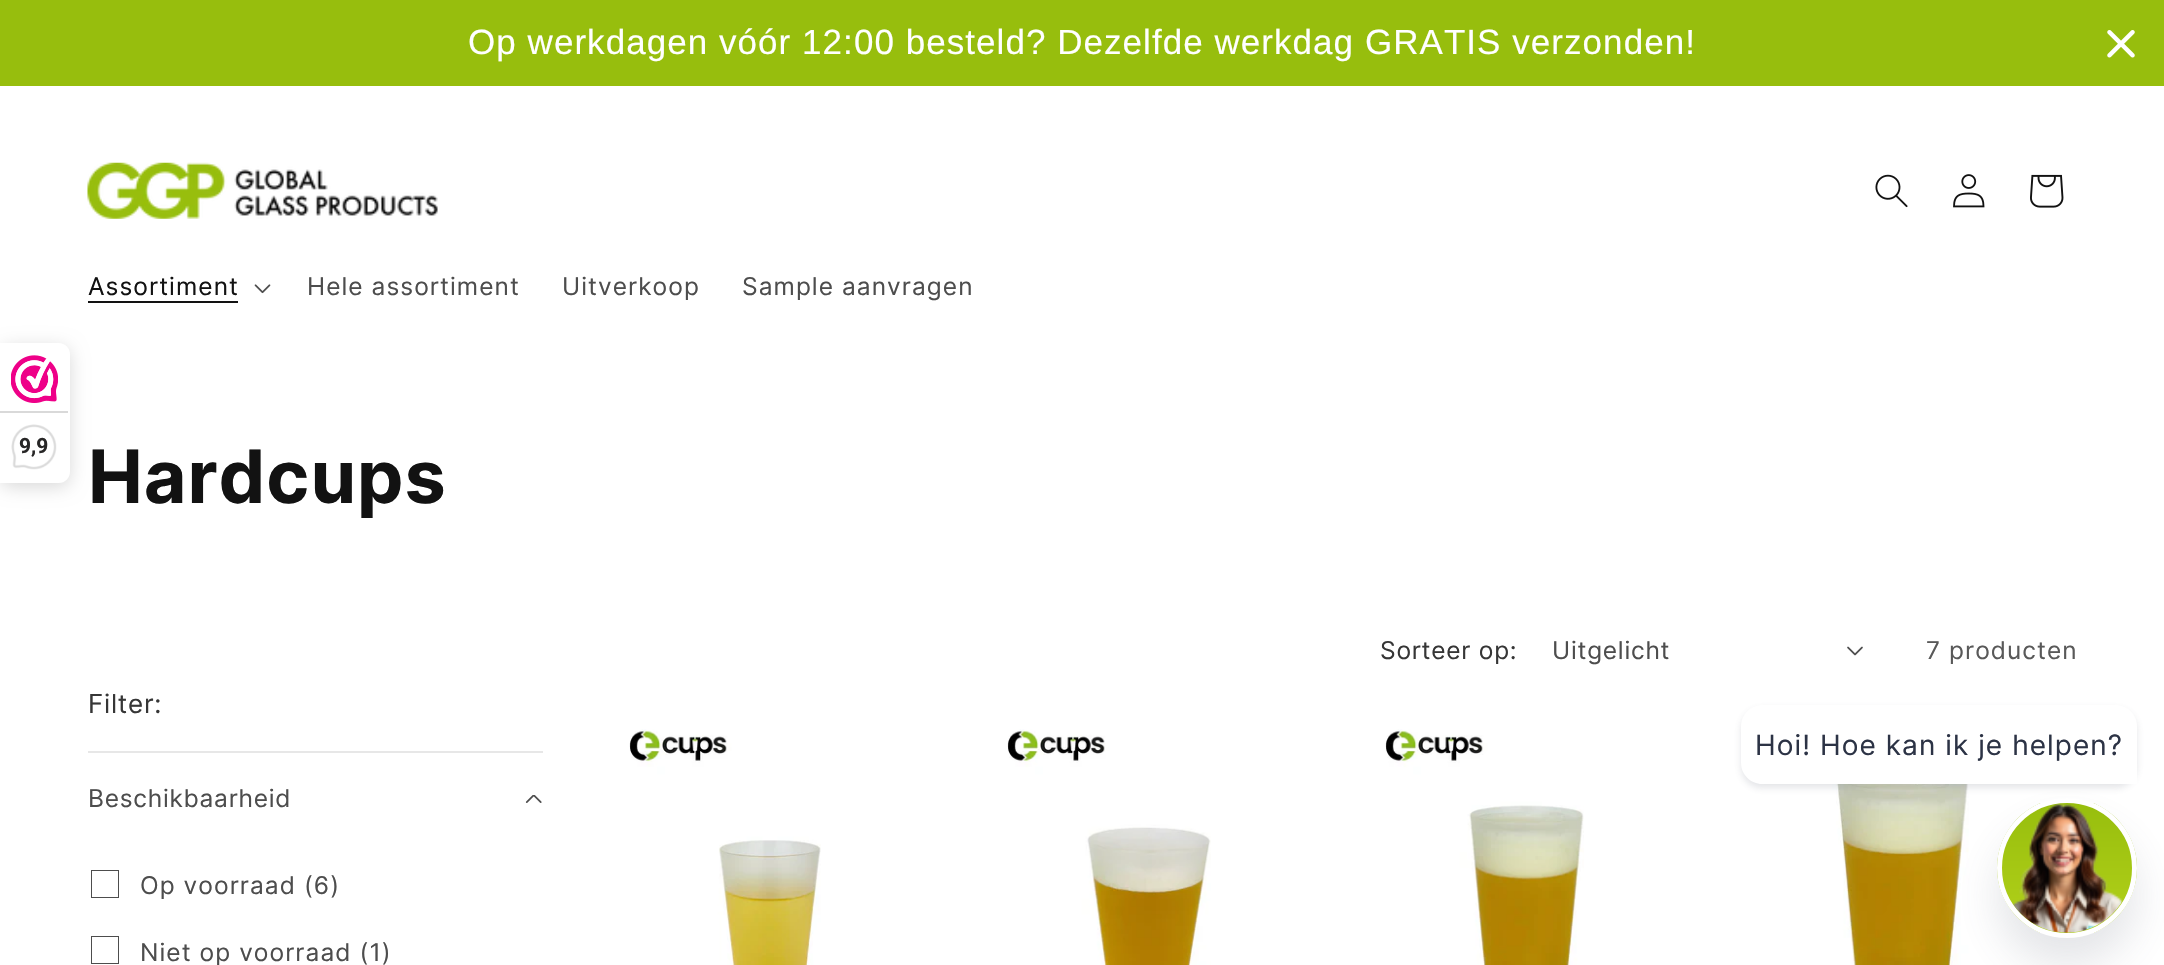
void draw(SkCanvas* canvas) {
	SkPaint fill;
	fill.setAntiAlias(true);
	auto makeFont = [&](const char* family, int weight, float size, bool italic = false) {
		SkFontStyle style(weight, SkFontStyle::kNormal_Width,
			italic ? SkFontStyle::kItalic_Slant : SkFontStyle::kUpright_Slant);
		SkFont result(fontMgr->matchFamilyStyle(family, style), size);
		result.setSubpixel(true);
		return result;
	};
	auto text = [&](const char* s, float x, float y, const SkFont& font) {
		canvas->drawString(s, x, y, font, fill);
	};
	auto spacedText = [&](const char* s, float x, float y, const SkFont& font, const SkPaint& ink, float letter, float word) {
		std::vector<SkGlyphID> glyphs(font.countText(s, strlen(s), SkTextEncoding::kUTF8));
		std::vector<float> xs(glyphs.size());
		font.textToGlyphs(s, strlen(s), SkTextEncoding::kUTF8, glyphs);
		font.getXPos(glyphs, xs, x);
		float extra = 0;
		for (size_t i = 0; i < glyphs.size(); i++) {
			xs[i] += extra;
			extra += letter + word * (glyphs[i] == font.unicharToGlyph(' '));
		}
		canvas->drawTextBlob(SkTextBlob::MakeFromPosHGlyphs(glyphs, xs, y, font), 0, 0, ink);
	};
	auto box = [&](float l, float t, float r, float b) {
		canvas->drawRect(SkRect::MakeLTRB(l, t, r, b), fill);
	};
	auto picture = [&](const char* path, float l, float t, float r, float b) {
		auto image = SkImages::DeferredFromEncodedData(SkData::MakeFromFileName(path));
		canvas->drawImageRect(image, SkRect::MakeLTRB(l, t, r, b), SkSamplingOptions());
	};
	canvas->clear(0xFFFFFFFF);
	fill.setColor(0xFF97BE0D);
	box(0, 0, 2164, 86);
	picture("image0.png", 2107, 30, 2135, 58);
	picture("image1.png", 87, 162, 438, 219);
	picture("image2.png", 1875, 174, 1908, 208);
	picture("image3.png", 1953, 174, 1985, 208);
	picture("image4.png", 2030, 174, 2064, 208);
	fill.setColor(0xFF121212);
	box(88, 301, 238, 303);
	picture("image5.png", 254, 284, 271, 294);
	fill.setColor(0x26000000);
	fill.setMaskFilter(SkMaskFilter::MakeBlur(kNormal_SkBlurStyle, 9));
	canvas->drawRoundRect(SkRect::MakeLTRB(0, 347, 70, 487), 11, 11, fill);
	fill.setMaskFilter(nullptr);
	fill.setColor(0xFFFFFFFF);
	canvas->drawPath(SkPathBuilder().moveTo(0, 343).lineTo(59, 343).cubicTo(65, 343, 70, 348, 70, 354).lineTo(70, 472).cubicTo(70, 478, 65, 483, 59, 483).lineTo(0, 483).close().detach(), fill);
	picture("image6.png", 11, 355, 58, 403);
	fill.setColor(0xFFD9D9D9);
	box(0, 411, 68, 413);
	picture("image7.png", 11, 424, 57, 470);
	picture("image8.png", 1847, 646, 1863, 656);
	fill.setColor(0xFFE7E7E7);
	box(88, 751, 543, 753);
	picture("image9.png", 525, 795, 542, 803);
	canvas->save();
	canvas->clipRect(SkRect::MakeLTRB(91, 870, 119, 898));
	fill.setStyle(SkPaint::kStroke_Style);
	fill.setStrokeWidth(2);
	fill.setColor(0xFF4D4D4D);
	canvas->drawRect(SkRect::MakeLTRB(91, 870, 119, 898), fill);
	canvas->restore();
	canvas->save();
	canvas->clipRect(SkRect::MakeLTRB(91, 936, 119, 964));
	canvas->drawRect(SkRect::MakeLTRB(91, 936, 119, 964), fill);
	canvas->restore();
	picture("image10.png", 629, 729, 821, 965);
	picture("image11.png", 1007, 729, 1211, 965);
	picture("image12.png", 1385, 729, 1584, 965);
	picture("image13.png", 1761, 783, 1969, 965);
	fill.setStyle(SkPaint::kFill_Style);
	fill.setColor(0x29545F6F);
	fill.setMaskFilter(SkMaskFilter::MakeBlur(kNormal_SkBlurStyle, 3.5f));
	canvas->drawRoundRect(SkRect::MakeLTRB(1741, 709, 2137, 788), 21, 21, fill);
	fill.setMaskFilter(nullptr);
	fill.setColor(0xFFFFFFFF);
	canvas->drawPath(SkPathBuilder().moveTo(1762, 705).lineTo(2116, 705).cubicTo(2127.5f, 705, 2137, 714.5f, 2137, 726).lineTo(2137, 784).lineTo(1762, 784).cubicTo(1750.5f, 784, 1741, 774.5f, 1741, 763).lineTo(1741, 726).cubicTo(1741, 714.5f, 1750.5f, 705, 1762, 705).close().detach(), fill);
	fill.setColor(0x29545F6F);
	fill.setMaskFilter(SkMaskFilter::MakeBlur(kNormal_SkBlurStyle, 21));
	canvas->drawRoundRect(SkRect::MakeLTRB(1997, 826, 2137, 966), 70, 70, fill);
	fill.setMaskFilter(nullptr);
	canvas->save();
	canvas->clipPath(SkPathBuilder().moveTo(2067, 798).cubicTo(2105.5f, 798, 2137, 829.5f, 2137, 868).cubicTo(2137, 906.5f, 2105.5f, 938, 2067, 938).cubicTo(2028.5f, 938, 1997, 906.5f, 1997, 868).cubicTo(1997, 829.5f, 2028.5f, 798, 2067, 798).close().detach(), true);
	{
		const SkColor colors[] = {0xFF97BE0D, 0xFFB3D11A};
		const float stops[] = {0, 1};
		const SkPoint ends[] = {{2067, 803}, {2067, 933}};
		fill.setShader(SkGradientShader::MakeLinear(ends, colors, stops, 2, SkTileMode::kClamp));
		fill.setAlpha(255);
	}
	box(1997, 803, 2137, 933);
	canvas->restore();
	fill.setStyle(SkPaint::kStroke_Style);
	fill.setStrokeWidth(5);
	fill.setShader(nullptr);
	fill.setColor(0xFFFFFFFF);
	canvas->drawCircle(2067, 868, 67.5f, fill);
	picture("image14.png", 2013, 803, 2123, 933);
	auto font1 = makeFont("Liberation Sans", 400, 35);
	fill.setStyle(SkPaint::kFill_Style);
	spacedText("Op werkdagen vóór 12:00 besteld? Dezelfde werkdag GRATIS verzonden!", 468, 54, font1, fill, 1.05f, 0);
	auto font2 = makeFont("Inter", 400, 24.5f);
	fill.setColor(0xFF121212);
	spacedText("Assortiment", 88, 295, font2, fill, 1.05f, 0);
	fill.setColor(0xFF4D4D4D);
	spacedText("Hele assortiment", 307, 295, font2, fill, 1.05f, 0);
	spacedText("Uitverkoop", 562, 295, font2, fill, 1.05f, 0);
	spacedText("Sample aanvragen", 742, 295, font2, fill, 1.05f, 0);
	auto font3 = makeFont("Roboto", 700, 21);
	fill.setColor(0xFF272626);
	text("9,9", 19, 453, font3);
	auto font4 = makeFont("Inter", 700, 73.5f);
	fill.setColor(0xFF121212);
	spacedText("Hardcups", 88, 503, font4, fill, 1, 0);
	fill.setColor(0xFF363636);
	spacedText("Sorteer op:", 1380, 659, font2, fill, 0.75f, 0);
	fill.setColor(0xFF4D4D4D);
	spacedText("Uitgelicht", 1552, 659, font2, fill, 0.75f, 0);
	fill.setColor(0xFF595959);
	spacedText("7 producten", 1926, 659, font2, fill, 1.05f, 0);
	auto font5 = makeFont("Inter", 400, 26);
	fill.setColor(0xFF363636);
	spacedText("Filter:", 88, 713, font5, fill, 0.75f, 0);
	fill.setColor(0xFF4D4D4D);
	spacedText("Beschikbaarheid", 88, 807, font2, fill, 0.75f, 0);
	spacedText("Op voorraad (6)", 140, 894, font2, fill, 1.05f, 0);
	spacedText("Niet op voorraad (1)", 140, 961, font2, fill, 1.05f, 0);
	auto font6 = makeFont("Inter", 400, 28);
	fill.setColor(0xFF2C3345);
	spacedText("Hoi! Hoe kan ik je helpen?", 1755, 755, font6, fill, 1.05f, 0);
}
